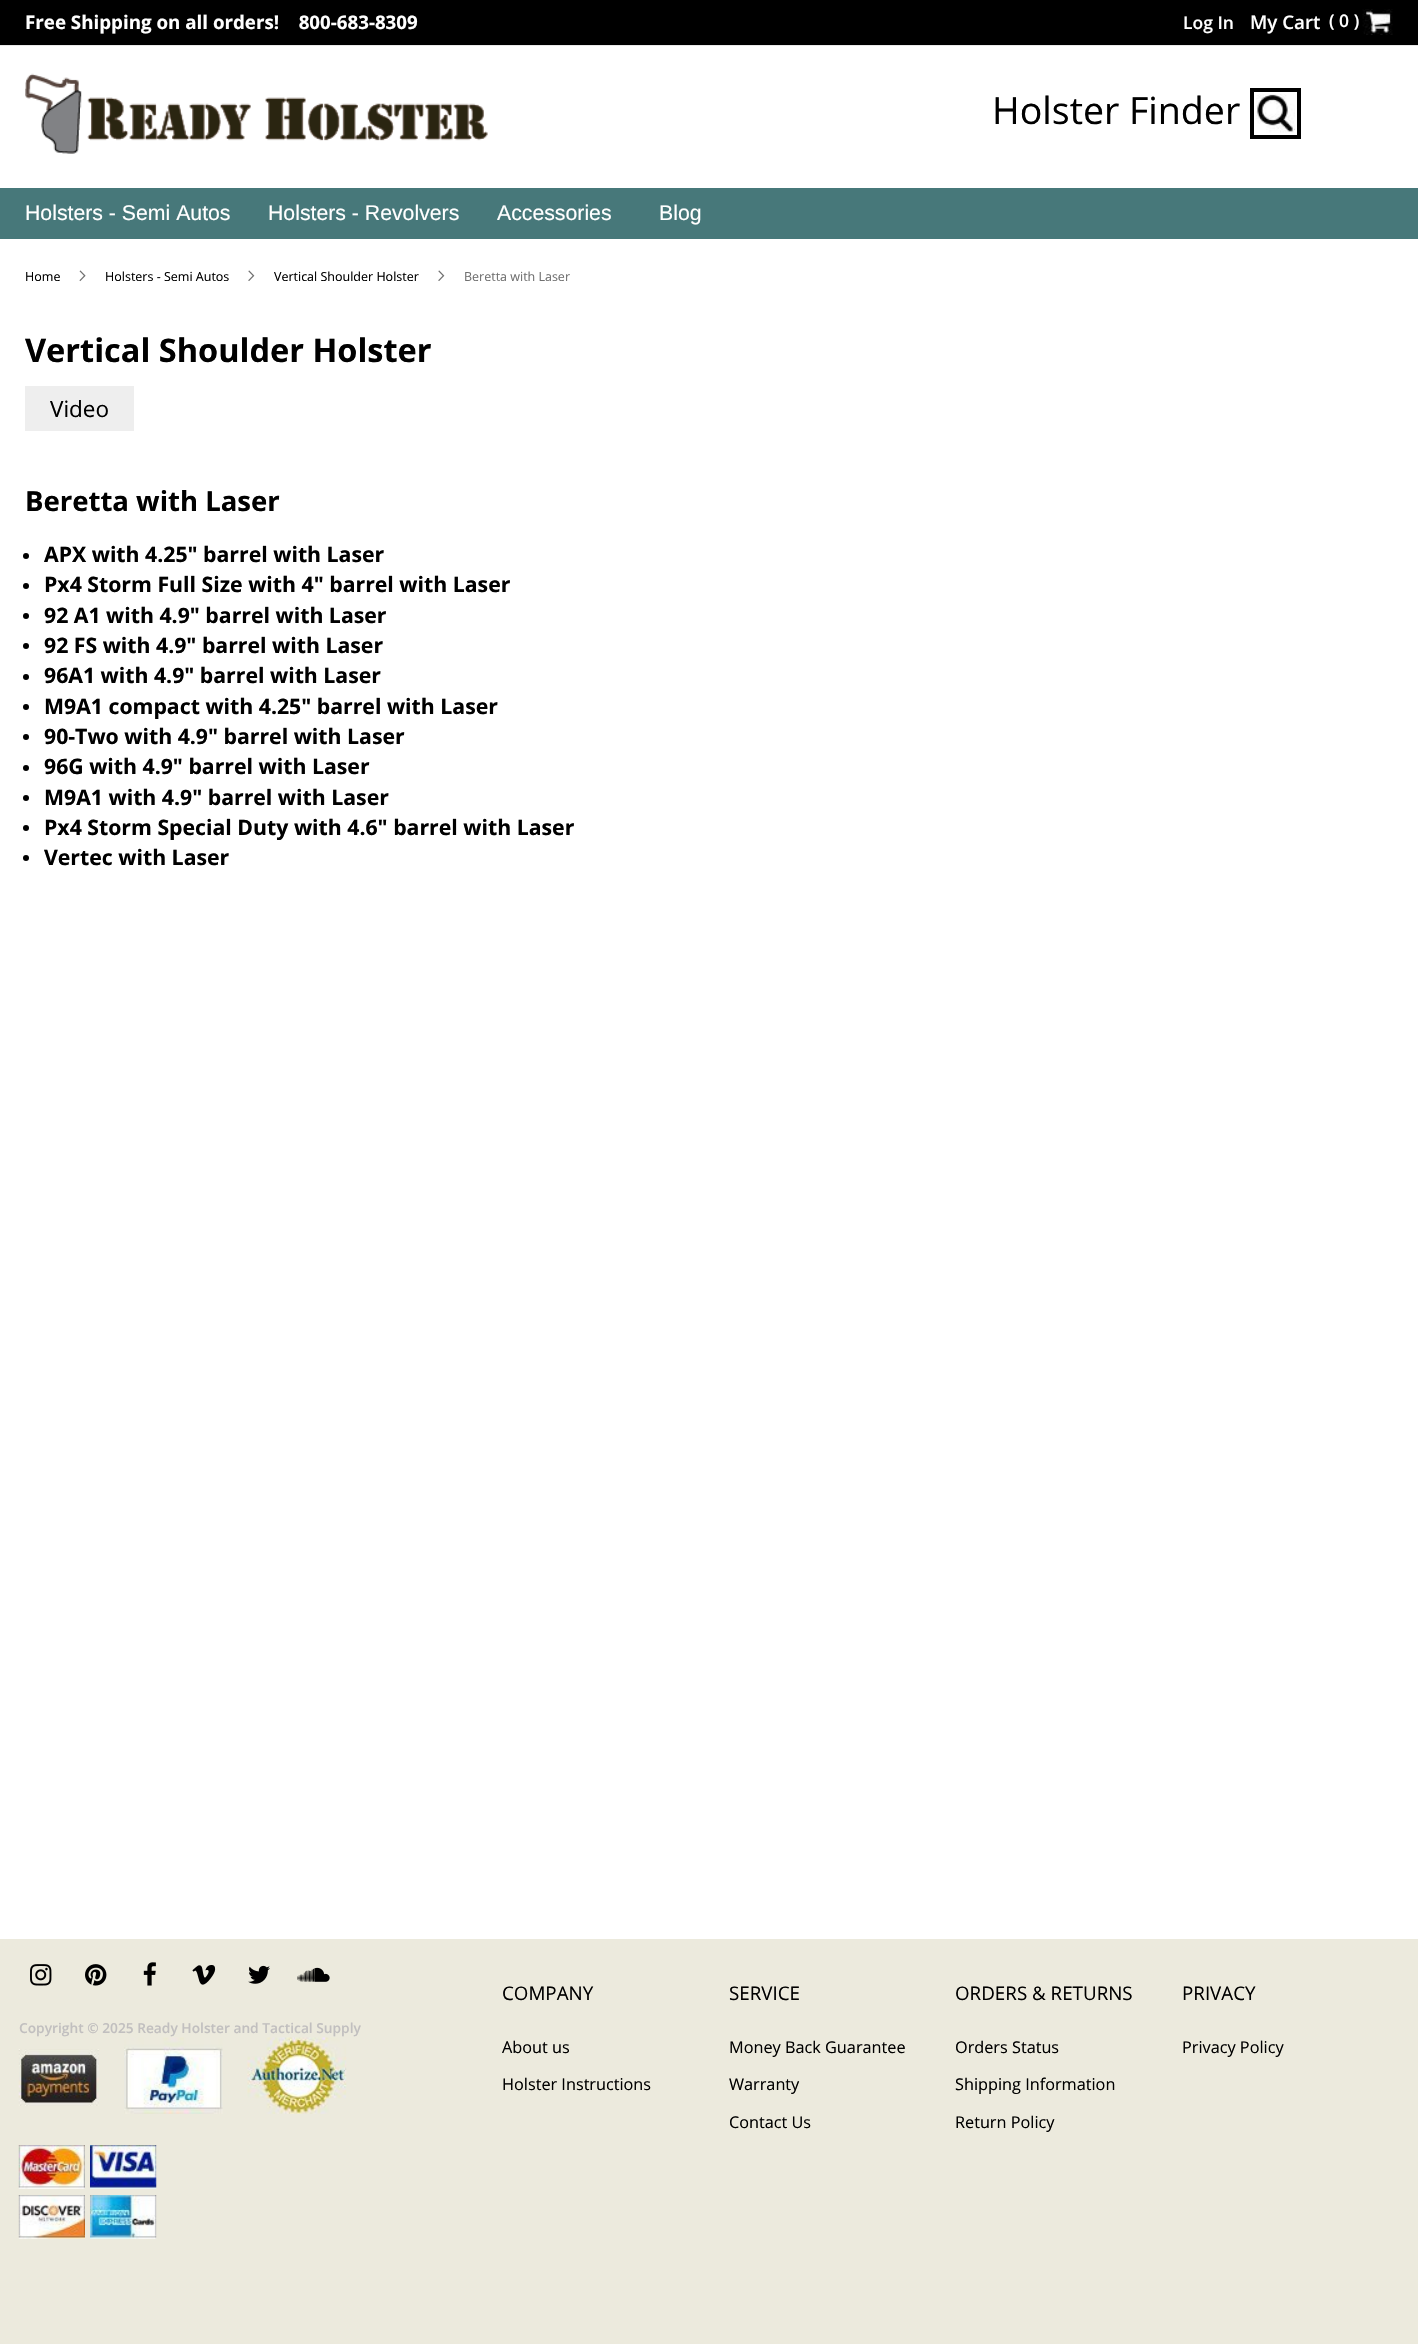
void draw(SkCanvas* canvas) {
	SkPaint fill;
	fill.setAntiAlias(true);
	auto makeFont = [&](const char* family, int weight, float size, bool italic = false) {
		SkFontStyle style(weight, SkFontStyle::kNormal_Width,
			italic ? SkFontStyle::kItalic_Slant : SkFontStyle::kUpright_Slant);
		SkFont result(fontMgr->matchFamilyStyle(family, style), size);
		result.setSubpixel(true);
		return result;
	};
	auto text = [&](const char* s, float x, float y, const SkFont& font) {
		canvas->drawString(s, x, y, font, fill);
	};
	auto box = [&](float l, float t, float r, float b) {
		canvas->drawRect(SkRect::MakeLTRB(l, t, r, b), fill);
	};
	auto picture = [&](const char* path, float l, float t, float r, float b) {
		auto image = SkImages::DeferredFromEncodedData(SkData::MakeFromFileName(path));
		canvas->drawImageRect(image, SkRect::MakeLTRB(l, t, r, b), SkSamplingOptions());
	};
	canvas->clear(0xFFFFFFFF);
	fill.setColor(0xFF000000);
	box(0, 0, 1418, 45);
	fill.setColor(0xFFE8E8E8);
	box(0, 45, 1418, 46);
	picture("image0.png", 1362, 9, 1393, 35);
	picture("image1.png", 25, 73, 488, 154);
	fill.setStyle(SkPaint::kStroke_Style);
	fill.setStrokeWidth(4);
	fill.setColor(0xFF000000);
	canvas->drawRect(SkRect::MakeLTRB(1252, 90, 1299, 137), fill);
	picture("image2.png", 1256, 94, 1295, 133);
	fill.setStyle(SkPaint::kFill_Style);
	fill.setColor(0xFF47787A);
	box(0, 188, 1418, 239);
	picture("image3.png", 79, 270, 86, 282);
	picture("image4.png", 248, 270, 255, 281);
	picture("image4.png", 438, 270, 445, 281);
	fill.setColor(0xFFEEEEEE);
	box(25, 386, 134, 431);
	fill.setColor(0xFF000000);
	canvas->drawCircle(26, 556, 3, fill);
	canvas->drawCircle(26, 586, 3, fill);
	canvas->drawCircle(26, 616, 3, fill);
	canvas->drawCircle(26, 646, 3, fill);
	canvas->drawCircle(26, 677, 3, fill);
	canvas->drawCircle(26, 707, 3, fill);
	canvas->drawCircle(26, 737, 3, fill);
	canvas->drawCircle(26, 768, 3, fill);
	canvas->drawCircle(26, 798, 3, fill);
	canvas->drawCircle(26, 828, 3, fill);
	canvas->drawCircle(26, 858, 3, fill);
	fill.setColor(0xFFECEADD);
	box(0, 1939, 1418, 2344);
	picture("image5.png", 30, 1964, 52, 1986);
	picture("image6.png", 85, 1964, 107, 1986);
	picture("image7.png", 143, 1962, 156, 1986);
	picture("image8.png", 192, 1965, 216, 1985);
	picture("image9.png", 248, 1965, 270, 1984);
	picture("image10.png", 297, 1967, 330, 1982);
	picture("image11.png", 18, 2049, 99, 2106);
	picture("image12.png", 124, 2037, 223, 2114);
	picture("image13.png", 247, 2037, 347, 2114);
	picture("image14.png", 18, 2145, 85, 2189);
	picture("image15.png", 90, 2145, 157, 2189);
	picture("image16.png", 18, 2195, 85, 2239);
	picture("image17.png", 90, 2195, 157, 2239);
	auto font1 = makeFont("Open Sans", 700, 18.75f);
	fill.setColor(0xFFFFFFFF);
	text("Free Shipping on all orders!    800-683-8309", 25, 29, font1);
	auto font2 = makeFont("Open Sans", 600, 17.5f);
	text("Log In", 1183, 29, font2);
	auto font3 = makeFont("Open Sans", 600, 18.75f);
	text("My Cart", 1250, 29, font3);
	text("( 0 )", 1329, 27, font2);
	auto font4 = makeFont("Open Sans", 400, 37.5f);
	fill.setColor(0xFF000000);
	text("Holster Finder", 992, 124, font4);
	auto font5 = makeFont("Liberation Sans", 400, 21.25f);
	fill.setColor(0xFFFFFFFF);
	text("Holsters - Semi Autos", 25, 220, font5);
	text("Holsters - Revolvers", 268, 220, font5);
	text("Accessories", 497, 220, font5);
	text("Blog", 659, 220, font5);
	auto font6 = makeFont("Open Sans", 400, 12.5f);
	fill.setColor(0xFF000000);
	text("Home", 25, 281, font6);
	text("Holsters - Semi Autos", 105, 281, font6);
	text("Vertical Shoulder Holster", 274, 281, font6);
	fill.setColor(0xFF707070);
	text("Beretta with Laser", 464, 281, font6);
	auto font7 = makeFont("Open Sans", 700, 32.5f);
	fill.setColor(0xFF000000);
	text("Vertical Shoulder Holster", 25, 362, font7);
	auto font8 = makeFont("Open Sans", 400, 22.5f);
	text("Video", 50, 417, font8);
	auto font9 = makeFont("Open Sans", 700, 27.5f);
	text("Beretta with Laser", 25, 511, font9);
	auto font10 = makeFont("Open Sans", 700, 21.25f);
	text("APX with 4.25\" barrel with Laser", 44, 562, font10);
	text("Px4 Storm Full Size with 4\" barrel with Laser", 44, 592, font10);
	text("92 A1 with 4.9\" barrel with Laser", 44, 623, font10);
	text("92 FS with 4.9\" barrel with Laser", 44, 653, font10);
	text("96A1 with 4.9\" barrel with Laser", 44, 683, font10);
	text("M9A1 compact with 4.25\" barrel with Laser", 44, 714, font10);
	text("90-Two with 4.9\" barrel with Laser", 44, 744, font10);
	text("96G with 4.9\" barrel with Laser", 44, 774, font10);
	text("M9A1 with 4.9\" barrel with Laser", 44, 805, font10);
	text("Px4 Storm Special Duty with 4.6\" barrel with Laser", 44, 835, font10);
	text("Vertec with Laser", 44, 865, font10);
	auto font11 = makeFont("Open Sans", 600, 13.75f);
	fill.setColor(0xFFC1BFBF);
	text("Copyright © 2025 Ready Holster and Tactical Supply", 19, 2033, font11);
	auto font12 = makeFont("Open Sans", 400, 18.75f);
	fill.setColor(0xFF000000);
	text("COMPANY", 502, 2000, font12);
	auto font13 = makeFont("Open Sans", 400, 16.25f);
	text("About us", 502, 2053, font13);
	text("Holster Instructions", 502, 2090, font13);
	text("SERVICE", 729, 2000, font12);
	text("Money Back Guarantee", 729, 2053, font13);
	text("Warranty", 729, 2090, font13);
	text("Contact Us", 729, 2128, font13);
	text("ORDERS & RETURNS", 955, 2000, font12);
	text("Orders Status", 955, 2053, font13);
	text("Shipping Information", 955, 2090, font13);
	text("Return Policy", 955, 2128, font13);
	text("PRIVACY", 1182, 2000, font12);
	text("Privacy Policy", 1182, 2053, font13);
}
